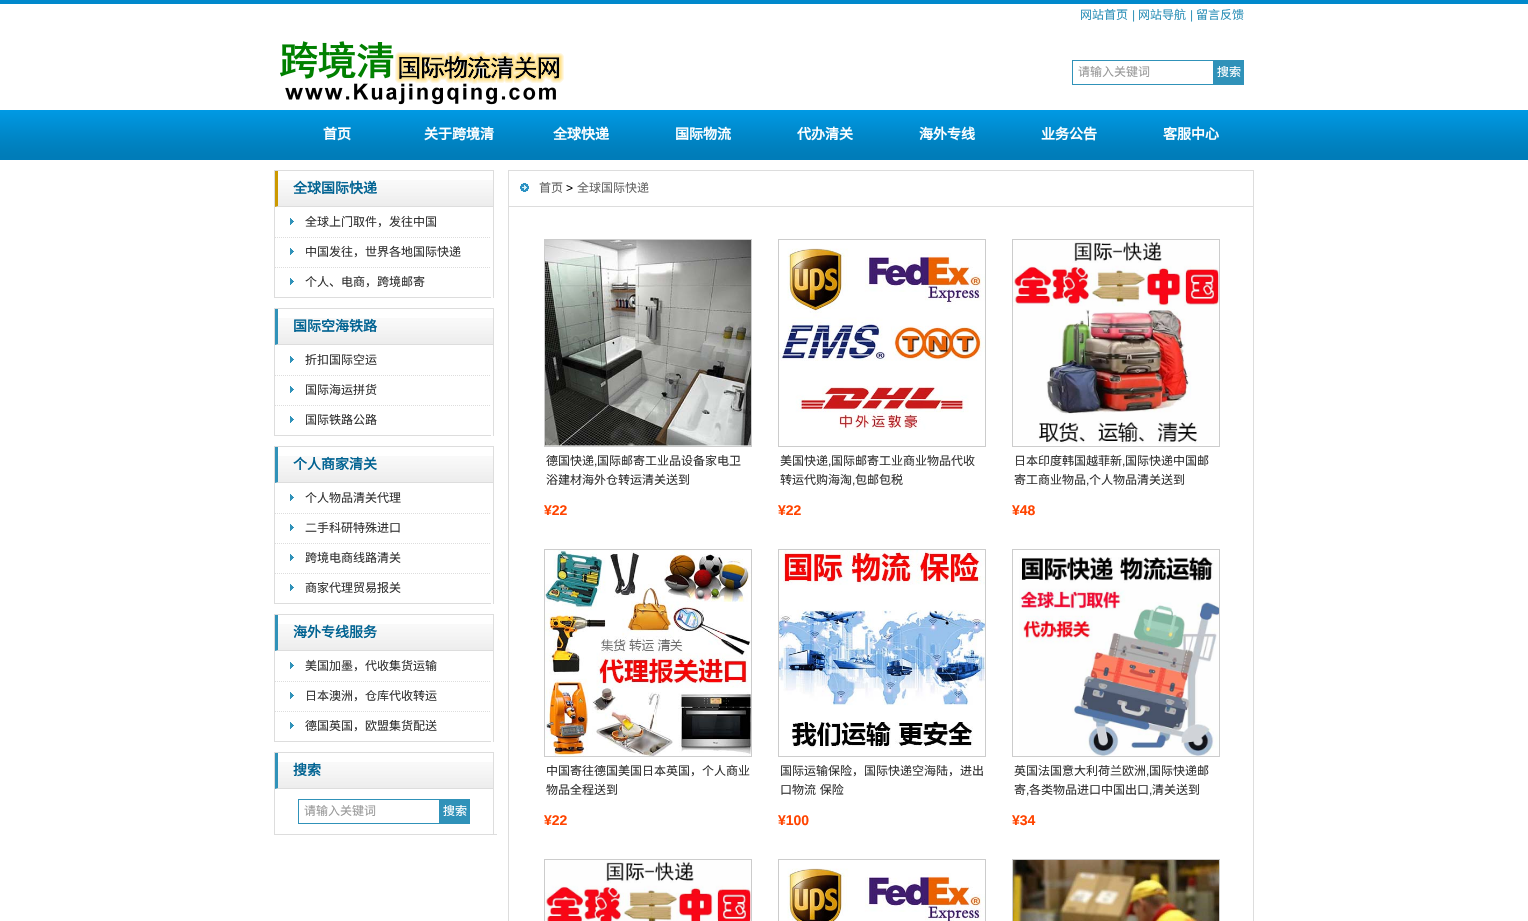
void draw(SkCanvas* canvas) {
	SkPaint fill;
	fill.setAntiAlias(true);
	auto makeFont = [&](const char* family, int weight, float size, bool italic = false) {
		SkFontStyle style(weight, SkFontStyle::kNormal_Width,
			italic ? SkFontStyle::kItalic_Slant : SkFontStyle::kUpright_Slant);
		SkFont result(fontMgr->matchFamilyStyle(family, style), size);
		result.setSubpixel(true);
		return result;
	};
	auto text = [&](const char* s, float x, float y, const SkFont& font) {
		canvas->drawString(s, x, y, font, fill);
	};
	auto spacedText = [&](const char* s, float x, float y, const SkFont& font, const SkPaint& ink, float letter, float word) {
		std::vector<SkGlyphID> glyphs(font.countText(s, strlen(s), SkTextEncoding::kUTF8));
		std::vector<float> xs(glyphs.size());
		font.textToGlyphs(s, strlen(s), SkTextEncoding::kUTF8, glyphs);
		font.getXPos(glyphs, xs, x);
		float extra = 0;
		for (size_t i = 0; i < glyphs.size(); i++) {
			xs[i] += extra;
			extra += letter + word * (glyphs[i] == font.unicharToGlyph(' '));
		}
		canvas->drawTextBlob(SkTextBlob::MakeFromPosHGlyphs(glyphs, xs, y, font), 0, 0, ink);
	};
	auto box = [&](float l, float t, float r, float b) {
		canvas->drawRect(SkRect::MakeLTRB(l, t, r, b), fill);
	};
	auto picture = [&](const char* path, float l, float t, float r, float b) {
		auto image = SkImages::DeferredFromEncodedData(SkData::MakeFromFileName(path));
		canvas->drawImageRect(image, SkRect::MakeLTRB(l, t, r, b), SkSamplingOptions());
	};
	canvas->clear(0xFFFFFFFF);
	fill.setColor(0xFF0089CC);
	box(0, 0, 1528, 4);
	picture("image0.png", 280, 41, 564, 105);
	fill.setStyle(SkPaint::kStroke_Style);
	fill.setStrokeWidth(1);
	fill.setColor(0xFF3092B9);
	canvas->drawRect(SkRect::MakeLTRB(1072.5f, 60.5f, 1213.5f, 84.5f), fill);
	fill.setStyle(SkPaint::kFill_Style);
	box(1214, 60, 1244, 85);
	picture("image1.png", 0, 110, 1528, 160);
	picture("image2.png", 275, 180, 493, 207);
	fill.setColor(0xFFDDDDDD);
	box(274, 170, 494, 171);
	box(493, 170, 494, 298);
	box(274, 170, 275, 298);
	canvas->drawPath(SkPathBuilder().moveTo(493, 207).lineTo(275, 207).lineTo(278, 206).lineTo(493, 206).close().detach(), fill);
	fill.setColor(0xFFCC9900);
	canvas->drawPath(SkPathBuilder().moveTo(275, 207).lineTo(275, 171).lineTo(278, 171).lineTo(278, 206).close().detach(), fill);
	fill.setColor(0xFFDDDDDD);
	box(275, 297, 491, 298);
	picture("image3.png", 290, 218, 294, 225);
	fill.setStyle(SkPaint::kStroke_Style);
	fill.setPathEffect(SkDashPathEffect::Make({{1, 1}}, 0));
	canvas->drawPath(SkPathBuilder().moveTo(275, 237.5f).lineTo(491, 237.5f).detach(), fill);
	fill.setPathEffect(nullptr);
	picture("image3.png", 290, 248, 294, 255);
	fill.setPathEffect(SkDashPathEffect::Make({{1, 1}}, 0));
	canvas->drawPath(SkPathBuilder().moveTo(275, 267.5f).lineTo(491, 267.5f).detach(), fill);
	fill.setPathEffect(nullptr);
	picture("image3.png", 290, 278, 294, 285);
	picture("image2.png", 275, 318, 493, 345);
	fill.setStyle(SkPaint::kFill_Style);
	box(274, 308, 494, 309);
	box(493, 308, 494, 436);
	box(274, 308, 275, 436);
	canvas->drawPath(SkPathBuilder().moveTo(493, 345).lineTo(275, 345).lineTo(278, 344).lineTo(493, 344).close().detach(), fill);
	fill.setColor(0xFF3092B9);
	canvas->drawPath(SkPathBuilder().moveTo(275, 345).lineTo(275, 309).lineTo(278, 309).lineTo(278, 344).close().detach(), fill);
	fill.setColor(0xFFDDDDDD);
	box(275, 435, 491, 436);
	picture("image3.png", 290, 356, 294, 363);
	fill.setStyle(SkPaint::kStroke_Style);
	fill.setPathEffect(SkDashPathEffect::Make({{1, 1}}, 0));
	canvas->drawPath(SkPathBuilder().moveTo(275, 375.5f).lineTo(491, 375.5f).detach(), fill);
	fill.setPathEffect(nullptr);
	picture("image3.png", 290, 386, 294, 393);
	fill.setPathEffect(SkDashPathEffect::Make({{1, 1}}, 0));
	canvas->drawPath(SkPathBuilder().moveTo(275, 405.5f).lineTo(491, 405.5f).detach(), fill);
	fill.setPathEffect(nullptr);
	picture("image3.png", 290, 416, 294, 423);
	picture("image2.png", 275, 456, 493, 483);
	fill.setStyle(SkPaint::kFill_Style);
	box(274, 446, 494, 447);
	box(493, 446, 494, 604);
	box(274, 446, 275, 604);
	canvas->drawPath(SkPathBuilder().moveTo(493, 483).lineTo(275, 483).lineTo(278, 482).lineTo(493, 482).close().detach(), fill);
	fill.setColor(0xFF3092B9);
	canvas->drawPath(SkPathBuilder().moveTo(275, 483).lineTo(275, 447).lineTo(278, 447).lineTo(278, 482).close().detach(), fill);
	fill.setColor(0xFFDDDDDD);
	box(275, 603, 491, 604);
	picture("image3.png", 290, 494, 294, 501);
	fill.setStyle(SkPaint::kStroke_Style);
	fill.setPathEffect(SkDashPathEffect::Make({{1, 1}}, 0));
	canvas->drawPath(SkPathBuilder().moveTo(275, 513.5f).lineTo(491, 513.5f).detach(), fill);
	fill.setPathEffect(nullptr);
	picture("image3.png", 290, 524, 294, 531);
	fill.setPathEffect(SkDashPathEffect::Make({{1, 1}}, 0));
	canvas->drawPath(SkPathBuilder().moveTo(275, 543.5f).lineTo(491, 543.5f).detach(), fill);
	fill.setPathEffect(nullptr);
	picture("image3.png", 290, 554, 294, 561);
	fill.setPathEffect(SkDashPathEffect::Make({{1, 1}}, 0));
	canvas->drawPath(SkPathBuilder().moveTo(275, 573.5f).lineTo(491, 573.5f).detach(), fill);
	fill.setPathEffect(nullptr);
	picture("image3.png", 290, 584, 294, 591);
	picture("image2.png", 275, 624, 493, 651);
	fill.setStyle(SkPaint::kFill_Style);
	box(274, 614, 494, 615);
	box(493, 614, 494, 742);
	box(274, 614, 275, 742);
	canvas->drawPath(SkPathBuilder().moveTo(493, 651).lineTo(275, 651).lineTo(278, 650).lineTo(493, 650).close().detach(), fill);
	fill.setColor(0xFF3092B9);
	canvas->drawPath(SkPathBuilder().moveTo(275, 651).lineTo(275, 615).lineTo(278, 615).lineTo(278, 650).close().detach(), fill);
	fill.setColor(0xFFDDDDDD);
	box(275, 741, 491, 742);
	picture("image3.png", 290, 662, 294, 669);
	fill.setStyle(SkPaint::kStroke_Style);
	fill.setPathEffect(SkDashPathEffect::Make({{1, 1}}, 0));
	canvas->drawPath(SkPathBuilder().moveTo(275, 681.5f).lineTo(491, 681.5f).detach(), fill);
	fill.setPathEffect(nullptr);
	picture("image3.png", 290, 692, 294, 699);
	fill.setPathEffect(SkDashPathEffect::Make({{1, 1}}, 0));
	canvas->drawPath(SkPathBuilder().moveTo(275, 711.5f).lineTo(491, 711.5f).detach(), fill);
	fill.setPathEffect(nullptr);
	picture("image3.png", 290, 722, 294, 729);
	picture("image2.png", 275, 762, 493, 789);
	fill.setStyle(SkPaint::kFill_Style);
	box(274, 752, 494, 753);
	box(493, 752, 494, 835);
	box(274, 752, 275, 835);
	canvas->drawPath(SkPathBuilder().moveTo(493, 789).lineTo(275, 789).lineTo(278, 788).lineTo(493, 788).close().detach(), fill);
	fill.setColor(0xFF3092B9);
	canvas->drawPath(SkPathBuilder().moveTo(275, 789).lineTo(275, 753).lineTo(278, 753).lineTo(278, 788).close().detach(), fill);
	fill.setColor(0xFFDDDDDD);
	box(275, 834, 497, 835);
	fill.setStyle(SkPaint::kStroke_Style);
	fill.setColor(0xFF3092B9);
	canvas->drawRect(SkRect::MakeLTRB(298.5f, 799.5f, 439.5f, 823.5f), fill);
	fill.setStyle(SkPaint::kFill_Style);
	box(440, 799, 470, 824);
	fill.setStyle(SkPaint::kStroke_Style);
	fill.setColor(0xFFDDDDDD);
	canvas->drawRect(SkRect::MakeLTRB(508.5f, 170.5f, 1253.5f, 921.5f), fill);
	fill.setStyle(SkPaint::kFill_Style);
	box(509, 206, 1253, 207);
	picture("image4.png", 520, 183, 529, 192);
	fill.setStyle(SkPaint::kStroke_Style);
	fill.setColor(0xFFCCCCCC);
	canvas->drawRect(SkRect::MakeLTRB(544.5f, 239.5f, 751.5f, 446.5f), fill);
	picture("image5.png", 545, 240, 751, 446);
	canvas->drawRect(SkRect::MakeLTRB(778.5f, 239.5f, 985.5f, 446.5f), fill);
	picture("image6.png", 779, 248, 985, 430);
	canvas->drawRect(SkRect::MakeLTRB(1012.5f, 239.5f, 1219.5f, 446.5f), fill);
	picture("image7.png", 1013, 240, 1219, 444);
	canvas->drawRect(SkRect::MakeLTRB(544.5f, 549.5f, 751.5f, 756.5f), fill);
	picture("image8.png", 545, 550, 751, 756);
	canvas->drawRect(SkRect::MakeLTRB(778.5f, 549.5f, 985.5f, 756.5f), fill);
	picture("image9.png", 779, 550, 985, 748);
	canvas->drawRect(SkRect::MakeLTRB(1012.5f, 549.5f, 1219.5f, 756.5f), fill);
	picture("image10.png", 1019, 557, 1219, 756);
	canvas->drawRect(SkRect::MakeLTRB(544.5f, 859.5f, 751.5f, 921.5f), fill);
	picture("image11.png", 545, 860, 751, 921);
	canvas->drawRect(SkRect::MakeLTRB(778.5f, 859.5f, 985.5f, 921.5f), fill);
	picture("image12.png", 787, 868, 985, 921);
	canvas->drawRect(SkRect::MakeLTRB(1012.5f, 859.5f, 1219.5f, 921.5f), fill);
	picture("image13.png", 1013, 860, 1219, 921);
	auto font1 = makeFont("Noto Sans CJK SC", 400, 12);
	fill.setStyle(SkPaint::kFill_Style);
	fill.setColor(0xFF3092B9);
	text("网站首页", 1080, 19, font1);
	auto font2 = makeFont("Liberation Sans", 400, 12);
	text("|", 1132, 19, font2);
	text("网站导航", 1138, 19, font1);
	text("|", 1190, 19, font2);
	text("留言反馈", 1196, 19, font1);
	fill.setColor(0xFF999999);
	text("请输入关键词", 1078, 76, font1);
	fill.setColor(0xFFFFFFFF);
	text("搜索", 1217, 76, font1);
	auto font3 = makeFont("Noto Sans CJK SC", 700, 14);
	text("首页", 323, 139, font3);
	text("关于跨境清", 424, 139, font3);
	text("全球快递", 553, 139, font3);
	text("国际物流", 675, 139, font3);
	text("代办清关", 797, 139, font3);
	text("海外专线", 919, 139, font3);
	text("业务公告", 1041, 139, font3);
	text("客服中心", 1163, 139, font3);
	fill.setColor(0xFF016392);
	text("全球国际快递", 293, 193, font3);
	fill.setColor(0xFF333333);
	text("全球上门取件，发往中国", 305, 226, font1);
	text("中国发往，世界各地国际快递", 305, 256, font1);
	text("个人、电商，跨境邮寄", 305, 286, font1);
	fill.setColor(0xFF016392);
	text("国际空海铁路", 293, 331, font3);
	fill.setColor(0xFF333333);
	text("折扣国际空运", 305, 364, font1);
	text("国际海运拼货", 305, 394, font1);
	text("国际铁路公路", 305, 424, font1);
	fill.setColor(0xFF016392);
	text("个人商家清关", 293, 469, font3);
	fill.setColor(0xFF333333);
	text("个人物品清关代理", 305, 502, font1);
	text("二手科研特殊进口", 305, 532, font1);
	text("跨境电商线路清关", 305, 562, font1);
	text("商家代理贸易报关", 305, 592, font1);
	fill.setColor(0xFF016392);
	text("海外专线服务", 293, 637, font3);
	fill.setColor(0xFF333333);
	text("美国加墨，代收集货运输", 305, 670, font1);
	text("日本澳洲，仓库代收转运", 305, 700, font1);
	text("德国英国，欧盟集货配送", 305, 730, font1);
	fill.setColor(0xFF016392);
	text("搜索", 293, 775, font3);
	fill.setColor(0xFF999999);
	text("请输入关键词", 304, 815, font1);
	fill.setColor(0xFFFFFFFF);
	text("搜索", 443, 815, font1);
	fill.setColor(0xFF666666);
	text("首页", 539, 192, font1);
	fill.setColor(0xFF000000);
	text(">", 566, 192, font2);
	fill.setColor(0xFF666666);
	text("全球国际快递", 577, 192, font1);
	fill.setColor(0xFF333333);
	text("德国快递", 546, 465, font1);
	text(",", 594, 465, font2);
	text("国际邮寄工业品设备家电卫", 597, 465, font1);
	text("浴建材海外仓转运清关送到", 546, 484, font1);
	auto font4 = makeFont("Liberation Sans", 700, 14);
	fill.setColor(0xFFFF4400);
	text("¥22", 544, 515, font4);
	fill.setColor(0xFF333333);
	text("美国快递", 780, 465, font1);
	text(",", 828, 465, font2);
	text("国际邮寄工业商业物品代收", 831, 465, font1);
	text("转运代购海淘", 780, 484, font1);
	text(",", 852, 484, font2);
	text("包邮包税", 855, 484, font1);
	fill.setColor(0xFFFF4400);
	text("¥22", 778, 515, font4);
	fill.setColor(0xFF333333);
	text("日本印度韩国越菲新", 1014, 465, font1);
	text(",", 1122, 465, font2);
	text("国际快递中国邮", 1125, 465, font1);
	text("寄工商业物品", 1014, 484, font1);
	text(",", 1086, 484, font2);
	text("个人物品清关送到", 1089, 484, font1);
	fill.setColor(0xFFFF4400);
	text("¥48", 1012, 515, font4);
	fill.setColor(0xFF333333);
	text("中国寄往德国美国日本英国，个人商业", 546, 775, font1);
	text("物品全程送到", 546, 794, font1);
	fill.setColor(0xFFFF4400);
	text("¥22", 544, 825, font4);
	fill.setColor(0xFF333333);
	text("国际运输保险，国际快递空海陆，进出", 780, 775, font1);
	spacedText("口物流 保险", 780, 794, font1, fill, 0, 1);
	fill.setColor(0xFFFF4400);
	text("¥100", 778, 825, font4);
	fill.setColor(0xFF333333);
	text("英国法国意大利荷兰欧洲", 1014, 775, font1);
	text(",", 1146, 775, font2);
	text("国际快递邮", 1149, 775, font1);
	text("寄", 1014, 794, font1);
	text(",", 1026, 794, font2);
	text("各类物品进口中国出口", 1029, 794, font1);
	text(",", 1149, 794, font2);
	text("清关送到", 1152, 794, font1);
	fill.setColor(0xFFFF4400);
	text("¥34", 1012, 825, font4);
}
